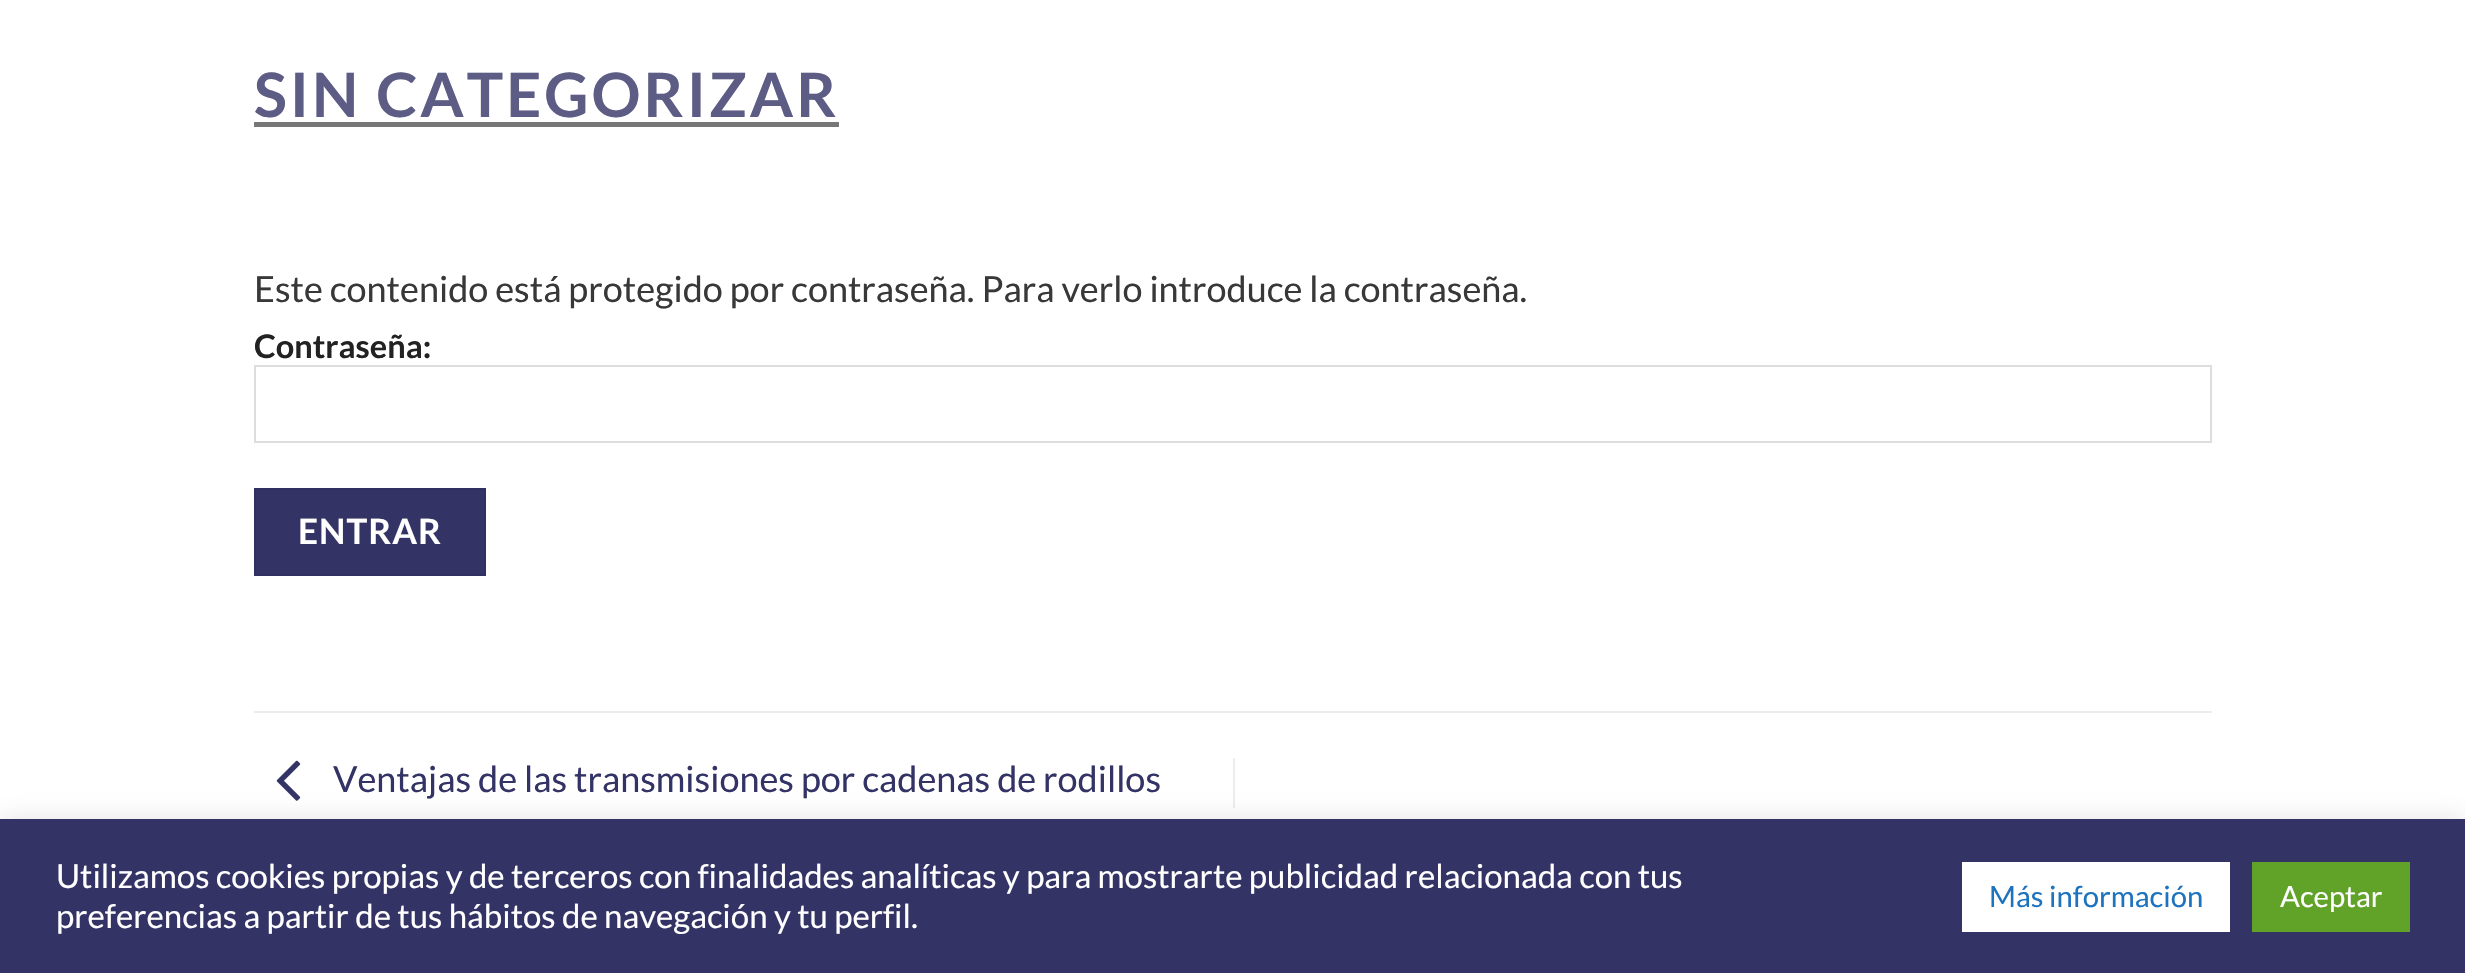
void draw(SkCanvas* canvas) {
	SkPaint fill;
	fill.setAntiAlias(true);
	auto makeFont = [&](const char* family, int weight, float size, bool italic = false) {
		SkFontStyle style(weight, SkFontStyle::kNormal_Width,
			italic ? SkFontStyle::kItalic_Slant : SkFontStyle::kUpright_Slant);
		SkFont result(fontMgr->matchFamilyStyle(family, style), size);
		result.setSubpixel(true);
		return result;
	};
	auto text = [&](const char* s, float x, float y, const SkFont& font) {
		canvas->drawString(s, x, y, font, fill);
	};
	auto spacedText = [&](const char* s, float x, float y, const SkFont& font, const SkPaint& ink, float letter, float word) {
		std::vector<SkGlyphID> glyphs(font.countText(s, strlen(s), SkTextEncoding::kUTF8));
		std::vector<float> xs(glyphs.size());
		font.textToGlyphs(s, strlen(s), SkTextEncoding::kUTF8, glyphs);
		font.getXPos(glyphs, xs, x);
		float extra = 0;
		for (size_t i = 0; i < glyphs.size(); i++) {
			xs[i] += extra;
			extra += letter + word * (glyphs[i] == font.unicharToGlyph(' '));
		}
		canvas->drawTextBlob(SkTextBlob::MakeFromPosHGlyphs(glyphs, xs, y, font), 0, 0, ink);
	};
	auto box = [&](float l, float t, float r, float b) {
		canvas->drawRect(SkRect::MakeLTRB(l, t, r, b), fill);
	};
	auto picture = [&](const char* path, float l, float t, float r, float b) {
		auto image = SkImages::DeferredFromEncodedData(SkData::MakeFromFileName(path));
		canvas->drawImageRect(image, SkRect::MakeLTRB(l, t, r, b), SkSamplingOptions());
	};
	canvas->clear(0xFFFFFFFF);
	fill.setColor(0xFF777777);
	box(254, 122, 839, 127);
	fill.setStyle(SkPaint::kStroke_Style);
	fill.setStrokeWidth(2);
	fill.setColor(0xFFDDDDDD);
	canvas->drawRect(SkRect::MakeLTRB(255, 366, 2211, 442), fill);
	fill.setStyle(SkPaint::kFill_Style);
	fill.setColor(0xFF333366);
	canvas->drawRect(SkRect::MakeLTRB(255, 489, 485, 575), fill);
	fill.setStyle(SkPaint::kStroke_Style);
	fill.setColor(0xFF303061);
	canvas->drawRect(SkRect::MakeLTRB(255, 489, 485, 575), fill);
	fill.setStyle(SkPaint::kFill_Style);
	fill.setColor(0xFFECECEC);
	box(254, 711, 2212, 713);
	picture("image0.png", 276, 760, 301, 801);
	box(1233, 758, 1235, 808);
	fill.setColor(0x4DACABAB);
	fill.setMaskFilter(SkMaskFilter::MakeBlur(kNormal_SkBlurStyle, 11));
	canvas->drawRect(SkRect::MakeLTRB(0, 817, 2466, 972), fill);
	fill.setMaskFilter(nullptr);
	fill.setColor(0xFF333366);
	box(0, 819, 2465, 973);
	fill.setColor(0xFFFFFFFF);
	box(1962, 862, 2230, 932);
	fill.setColor(0xFF61A229);
	box(2252, 862, 2410, 932);
	auto font1 = makeFont("Lato", 700, 61.25f);
	fill.setColor(0xFF5C5C85);
	spacedText("SIN CATEGORIZAR", 254, 117, font1, fill, 3, 0);
	auto font2 = makeFont("Lato", 400, 36);
	fill.setColor(0xFF383838);
	text("Este contenido está protegido por contraseña. Para verlo introduce la contraseña.", 254, 302, font2);
	auto font3 = makeFont("Lato", 700, 32.5f);
	fill.setColor(0xFF222222);
	text("Contraseña:", 254, 358, font3);
	auto font4 = makeFont("Lato", 700, 35);
	fill.setColor(0xFFFFFFFF);
	spacedText("ENTRAR", 298, 544, font4, fill, 1, 0);
	fill.setColor(0xFF333366);
	text("Ventajas de las transmisiones por cadenas de rodillos", 333, 792, font2);
	auto font5 = makeFont("Lato", 400, 33);
	fill.setColor(0xFFFFFFFF);
	text("Utilizamos cookies propias y de terceros con finalidades analíticas y para mostrarte publicidad relacionada con tus", 56, 888, font5);
	text("preferencias a partir de tus hábitos de navegación y tu perfil.", 56, 928, font5);
	auto font6 = makeFont("Lato", 400, 29.25f);
	fill.setColor(0xFF1E73BE);
	text("Más información", 1989, 907, font6);
	fill.setColor(0xFFFFFFFF);
	text("Aceptar", 2280, 907, font6);
}
